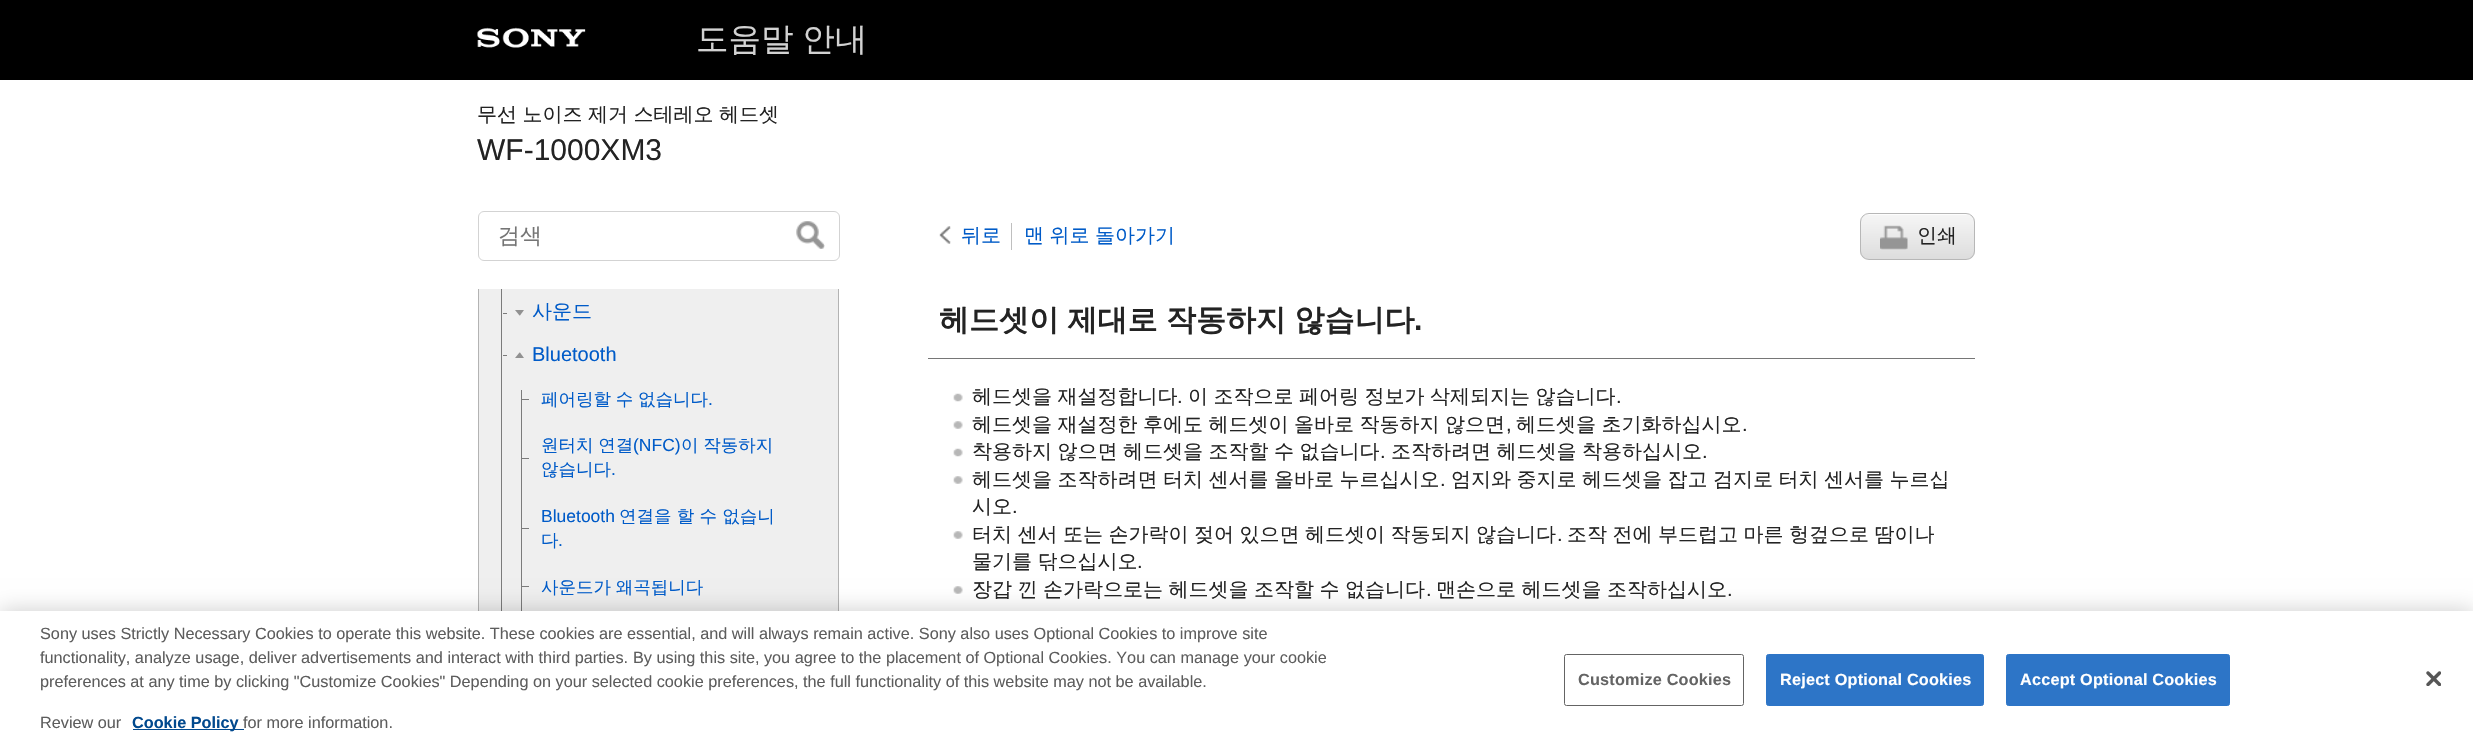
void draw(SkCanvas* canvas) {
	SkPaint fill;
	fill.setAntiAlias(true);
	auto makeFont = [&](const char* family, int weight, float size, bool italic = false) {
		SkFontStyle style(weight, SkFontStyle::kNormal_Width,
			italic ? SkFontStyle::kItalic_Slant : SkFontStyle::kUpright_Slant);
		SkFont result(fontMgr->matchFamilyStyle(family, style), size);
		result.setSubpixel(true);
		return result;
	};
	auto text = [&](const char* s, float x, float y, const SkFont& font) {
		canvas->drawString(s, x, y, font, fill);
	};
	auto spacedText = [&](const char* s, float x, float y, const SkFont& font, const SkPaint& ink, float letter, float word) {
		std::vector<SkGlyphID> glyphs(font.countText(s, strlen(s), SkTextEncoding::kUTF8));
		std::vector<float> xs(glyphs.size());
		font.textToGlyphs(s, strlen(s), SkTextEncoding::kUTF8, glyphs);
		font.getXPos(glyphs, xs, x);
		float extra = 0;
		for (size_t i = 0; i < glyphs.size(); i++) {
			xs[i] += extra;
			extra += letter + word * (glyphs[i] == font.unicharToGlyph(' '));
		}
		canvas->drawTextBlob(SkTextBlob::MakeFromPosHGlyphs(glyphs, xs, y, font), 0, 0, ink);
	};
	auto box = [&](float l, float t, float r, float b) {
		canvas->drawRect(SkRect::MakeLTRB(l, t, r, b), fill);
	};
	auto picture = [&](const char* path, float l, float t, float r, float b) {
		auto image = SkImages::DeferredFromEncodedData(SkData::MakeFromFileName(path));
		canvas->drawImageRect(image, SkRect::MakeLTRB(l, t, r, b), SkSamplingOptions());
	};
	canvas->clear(0xFFFFFFFF);
	fill.setColor(0xFF000000);
	box(0, 0, 2473, 80);
	picture("image0.png", 477, 27, 586, 48);
	fill.setStyle(SkPaint::kStroke_Style);
	fill.setStrokeWidth(1);
	fill.setColor(0xFFD3D3D3);
	canvas->drawRoundRect(SkRect::MakeLTRB(478.5f, 211.5f, 839.5f, 260.5f), 5.5f, 5.5f, fill);
	picture("image1.png", 796, 221, 825, 249);
	picture("image2.png", 939, 226, 951, 244);
	fill.setStyle(SkPaint::kFill_Style);
	fill.setColor(0xFFBFBFBF);
	box(1011, 223, 1012, 250);
	canvas->save();
	canvas->clipPath(SkPathBuilder().moveTo(1869, 213).lineTo(1966, 213).cubicTo(1971, 213, 1975, 217, 1975, 222).lineTo(1975, 251).cubicTo(1975, 256, 1971, 260, 1966, 260).lineTo(1869, 260).cubicTo(1864, 260, 1860, 256, 1860, 251).lineTo(1860, 222).cubicTo(1860, 217, 1864, 213, 1869, 213).close().detach(), true);
	{
		const SkColor colors[] = {0xFFFDFDFD, 0xFFFDFDFD, 0xFFF5F5F5, 0xFFDDDDDD};
		const float stops[] = {0, 0.03f, 0.03f, 1};
		const SkPoint ends[] = {{1918, 214}, {1918, 259}};
		fill.setShader(SkGradientShader::MakeLinear(ends, colors, stops, 4, SkTileMode::kClamp));
		fill.setAlpha(255);
	}
	box(1860, 214, 1975, 259);
	canvas->restore();
	fill.setStyle(SkPaint::kStroke_Style);
	fill.setShader(nullptr);
	fill.setColor(0xFFB7B7B7);
	canvas->drawRoundRect(SkRect::MakeLTRB(1860.5f, 213.5f, 1974.5f, 259.5f), 8.5f, 8.5f, fill);
	picture("image3.png", 1880, 225, 1908, 250);
	fill.setStyle(SkPaint::kFill_Style);
	fill.setColor(0xFFEFEFEF);
	box(479, 289, 838, 611);
	canvas->save();
	canvas->clipRect(SkRect::MakeLTRB(478, 289, 846, 751));
	fill.setStyle(SkPaint::kStroke_Style);
	fill.setColor(0xFFB3B3B3);
	canvas->drawPath(SkPathBuilder().moveTo(478.5f, 190.5f).lineTo(838.5f, 190.5f).lineTo(838.5f, 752.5f).cubicTo(838.5f, 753.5f, 837.5f, 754.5f, 836.5f, 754.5f).lineTo(480.5f, 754.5f).cubicTo(479.5f, 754.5f, 478.5f, 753.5f, 478.5f, 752.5f).close().detach(), fill);
	canvas->restore();
	fill.setStyle(SkPaint::kFill_Style);
	fill.setColor(0xFF7B7B7B);
	box(501, 289, 502, 611);
	box(503, 313, 507, 314);
	fill.setColor(0xFF919191);
	canvas->drawPath(SkPathBuilder().moveTo(515, 310).lineTo(519.5f, 315.5f).lineTo(520, 315.5f).lineTo(524, 310).close().detach(), fill);
	fill.setColor(0xFF7B7B7B);
	box(503, 355, 507, 356);
	fill.setColor(0xFF919191);
	canvas->drawPath(SkPathBuilder().moveTo(515, 358).lineTo(519.5f, 352.5f).lineTo(520, 352.5f).lineTo(524, 358).close().detach(), fill);
	fill.setColor(0xFF7B7B7B);
	box(521, 390, 522, 611);
	box(521, 399, 529, 400);
	box(521, 458, 529, 459);
	box(521, 528, 529, 529);
	box(521, 586, 529, 587);
	fill.setColor(0xFF767676);
	box(928, 358, 1975, 359);
	picture("image4.png", 953, 393, 963, 402);
	picture("image5.png", 953, 421, 963, 429);
	picture("image4.png", 953, 448, 963, 457);
	picture("image5.png", 953, 476, 963, 484);
	picture("image5.png", 953, 531, 963, 539);
	picture("image6.png", 953, 586, 963, 594);
	fill.setColor(0x33000000);
	fill.setMaskFilter(SkMaskFilter::MakeBlur(kNormal_SkBlurStyle, 11));
	canvas->drawRect(SkRect::MakeLTRB(0, 611, 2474, 751), fill);
	fill.setMaskFilter(nullptr);
	fill.setColor(0xFFFFFFFF);
	box(0, 611, 2473, 751);
	fill.setColor(0xFF01498E);
	box(133, 729, 244, 730);
	fill.setStyle(SkPaint::kStroke_Style);
	fill.setColor(0xFF646464);
	canvas->drawRoundRect(SkRect::MakeLTRB(1564.5f, 654.5f, 1743.5f, 705.5f), 2, 2, fill);
	fill.setStyle(SkPaint::kFill_Style);
	fill.setColor(0xFF2D75C7);
	canvas->drawRoundRect(SkRect::MakeLTRB(1766.5f, 654.5f, 1983.5f, 705.5f), 2, 2, fill);
	fill.setStyle(SkPaint::kStroke_Style);
	canvas->drawRoundRect(SkRect::MakeLTRB(1766.5f, 654.5f, 1983.5f, 705.5f), 2, 2, fill);
	fill.setStyle(SkPaint::kFill_Style);
	canvas->drawRoundRect(SkRect::MakeLTRB(2006.5f, 654.5f, 2229.5f, 705.5f), 2, 2, fill);
	fill.setStyle(SkPaint::kStroke_Style);
	canvas->drawRoundRect(SkRect::MakeLTRB(2006.5f, 654.5f, 2229.5f, 705.5f), 2, 2, fill);
	picture("image7.png", 2426, 671, 2441, 686);
	auto font1 = makeFont("WenQuanYi Zen Hei", 500, 32.5f);
	fill.setStyle(SkPaint::kFill_Style);
	fill.setColor(0xFFD2D2D2);
	spacedText("도움말 안내", 696, 50, font1, fill, 0, -1);
	auto font2 = makeFont("WenQuanYi Zen Hei", 500, 20);
	fill.setColor(0xFF232323);
	spacedText("무선 노이즈 제거 스테레오 헤드셋", 477, 121, font2, fill, 0, -0.5f);
	auto font3 = makeFont("Liberation Sans", 400, 30);
	text("WF-1000XM3", 477, 160, font3);
	auto font4 = makeFont("WenQuanYi Zen Hei", 500, 22);
	fill.setColor(0xFF757575);
	text("검색", 498, 243, font4);
	fill.setColor(0xFF005BC8);
	text("뒤로", 961, 242, font2);
	spacedText("맨 위로 돌아가기", 1024, 242, font2, fill, 0, -0.5f);
	fill.setColor(0xFF232323);
	text("인쇄", 1917, 242, font2);
	fill.setColor(0xFF005BC8);
	text("사운드", 532, 318, font2);
	auto font5 = makeFont("Liberation Sans", 400, 20);
	text("Bluetooth", 532, 361, font5);
	auto font6 = makeFont("WenQuanYi Zen Hei", 500, 17.5f);
	spacedText("페어링할 수 없습니다", 541, 405, font6, fill, 0, -0.5f);
	auto font7 = makeFont("Liberation Sans", 400, 17.5f);
	text(".", 708, 405, font7);
	spacedText("원터치 연결", 541, 451, font6, fill, 0, -0.5f);
	text("(NFC)", 633, 451, font7);
	spacedText("이 작동하지", 681, 451, font6, fill, 0, -0.5f);
	text("않습니다", 541, 475, font6);
	text(".", 611, 475, font7);
	text("Bluetooth", 541, 522, font7);
	text("연결을 할 수 없습니", 619, 522, font6);
	text("다", 541, 546, font6);
	text(".", 558, 546, font7);
	spacedText("사운드가 왜곡됩니다", 541, 593, font6, fill, 0, -0.5f);
	auto font8 = makeFont("WenQuanYi Zen Hei", 700, 30);
	fill.setColor(0xFF232323);
	spacedText("헤드셋이 제대로 작동하지 않습니다", 939, 330, font8, fill, 0, -0.5f);
	auto font9 = makeFont("Liberation Sans", 700, 30);
	text(".", 1414, 330, font9);
	spacedText("헤드셋을 재설정합니다", 972, 403, font2, fill, 0, -0.5f);
	text(".", 1177, 403, font5);
	spacedText("이 조작으로 페어링 정보가 삭제되지는 않습니다", 1188, 403, font2, fill, 0, -0.5f);
	text(".", 1616, 403, font5);
	spacedText("헤드셋을 재설정한 후에도 헤드셋이 올바로 작동하지 않으면", 972, 431, font2, fill, 0, -0.5f);
	text(",", 1506, 431, font5);
	spacedText("헤드셋을 초기화하십시오", 1516, 431, font2, fill, 0, -0.5f);
	text(".", 1742, 431, font5);
	spacedText("착용하지 않으면 헤드셋을 조작할 수 없습니다", 972, 458, font2, fill, 0, -0.5f);
	text(".", 1380, 458, font5);
	spacedText("조작하려면 헤드셋을 착용하십시오", 1391, 458, font2, fill, 0, -0.5f);
	text(".", 1702, 458, font5);
	spacedText("헤드셋을 조작하려면 터치 센서를 올바로 누르십시오", 972, 486, font2, fill, 0, -0.5f);
	text(".", 1440, 486, font5);
	spacedText("엄지와 중지로 헤드셋을 잡고 검지로 터치 센서를 누르십", 1451, 486, font2, fill, 0, -0.5f);
	text("시오", 972, 513, font2);
	text(".", 1012, 513, font5);
	spacedText("터치 센서 또는 손가락이 젖어 있으면 헤드셋이 작동되지 않습니다", 972, 541, font2, fill, 0, -0.5f);
	text(".", 1557, 541, font5);
	spacedText("조작 전에 부드럽고 마른 헝겊으로 땀이나", 1567, 541, font2, fill, 0, -0.5f);
	spacedText("물기를 닦으십시오", 972, 568, font2, fill, 0, -0.5f);
	text(".", 1137, 568, font5);
	spacedText("장갑 낀 손가락으로는 헤드셋을 조작할 수 없습니다", 972, 596, font2, fill, 0, -0.5f);
	text(".", 1426, 596, font5);
	spacedText("맨손으로 헤드셋을 조작하십시오", 1436, 596, font2, fill, 0, -0.5f);
	text(".", 1727, 596, font5);
	auto font10 = makeFont("Liberation Sans", 400, 16.25f);
	fill.setColor(0xFF5D5D5D);
	text("Sony uses Strictly Necessary Cookies to operate this website. These cookies are essential, and will always remain active. Sony also uses Optional Cookies to improve site", 40, 639, font10);
	text("functionality, analyze usage, deliver advertisements and interact with third parties.", 40, 663, font10);
	text("By using this site, you agree to the placement of Optional Cookies. You can manage your cookie", 633, 663, font10);
	text("preferences at any time by clicking \"Customize Cookies\" Depending on your selected cookie preferences, the full functionality of this website may not be available.", 40, 687, font10);
	text("Review our", 40, 728, font10);
	auto font11 = makeFont("Liberation Sans", 700, 16.25f);
	fill.setColor(0xFF01498E);
	text("Cookie Policy", 132, 728, font11);
	fill.setColor(0xFF5D5D5D);
	text("for more information.", 243, 728, font10);
	fill.setColor(0xFF646464);
	spacedText("Customize Cookies", 1578, 685, font11, fill, 0.2f, 0);
	fill.setColor(0xFFFFFFFF);
	spacedText("Reject Optional Cookies", 1780, 685, font11, fill, 0.2f, 0);
	spacedText("Accept Optional Cookies", 2020, 685, font11, fill, 0.2f, 0);
}
